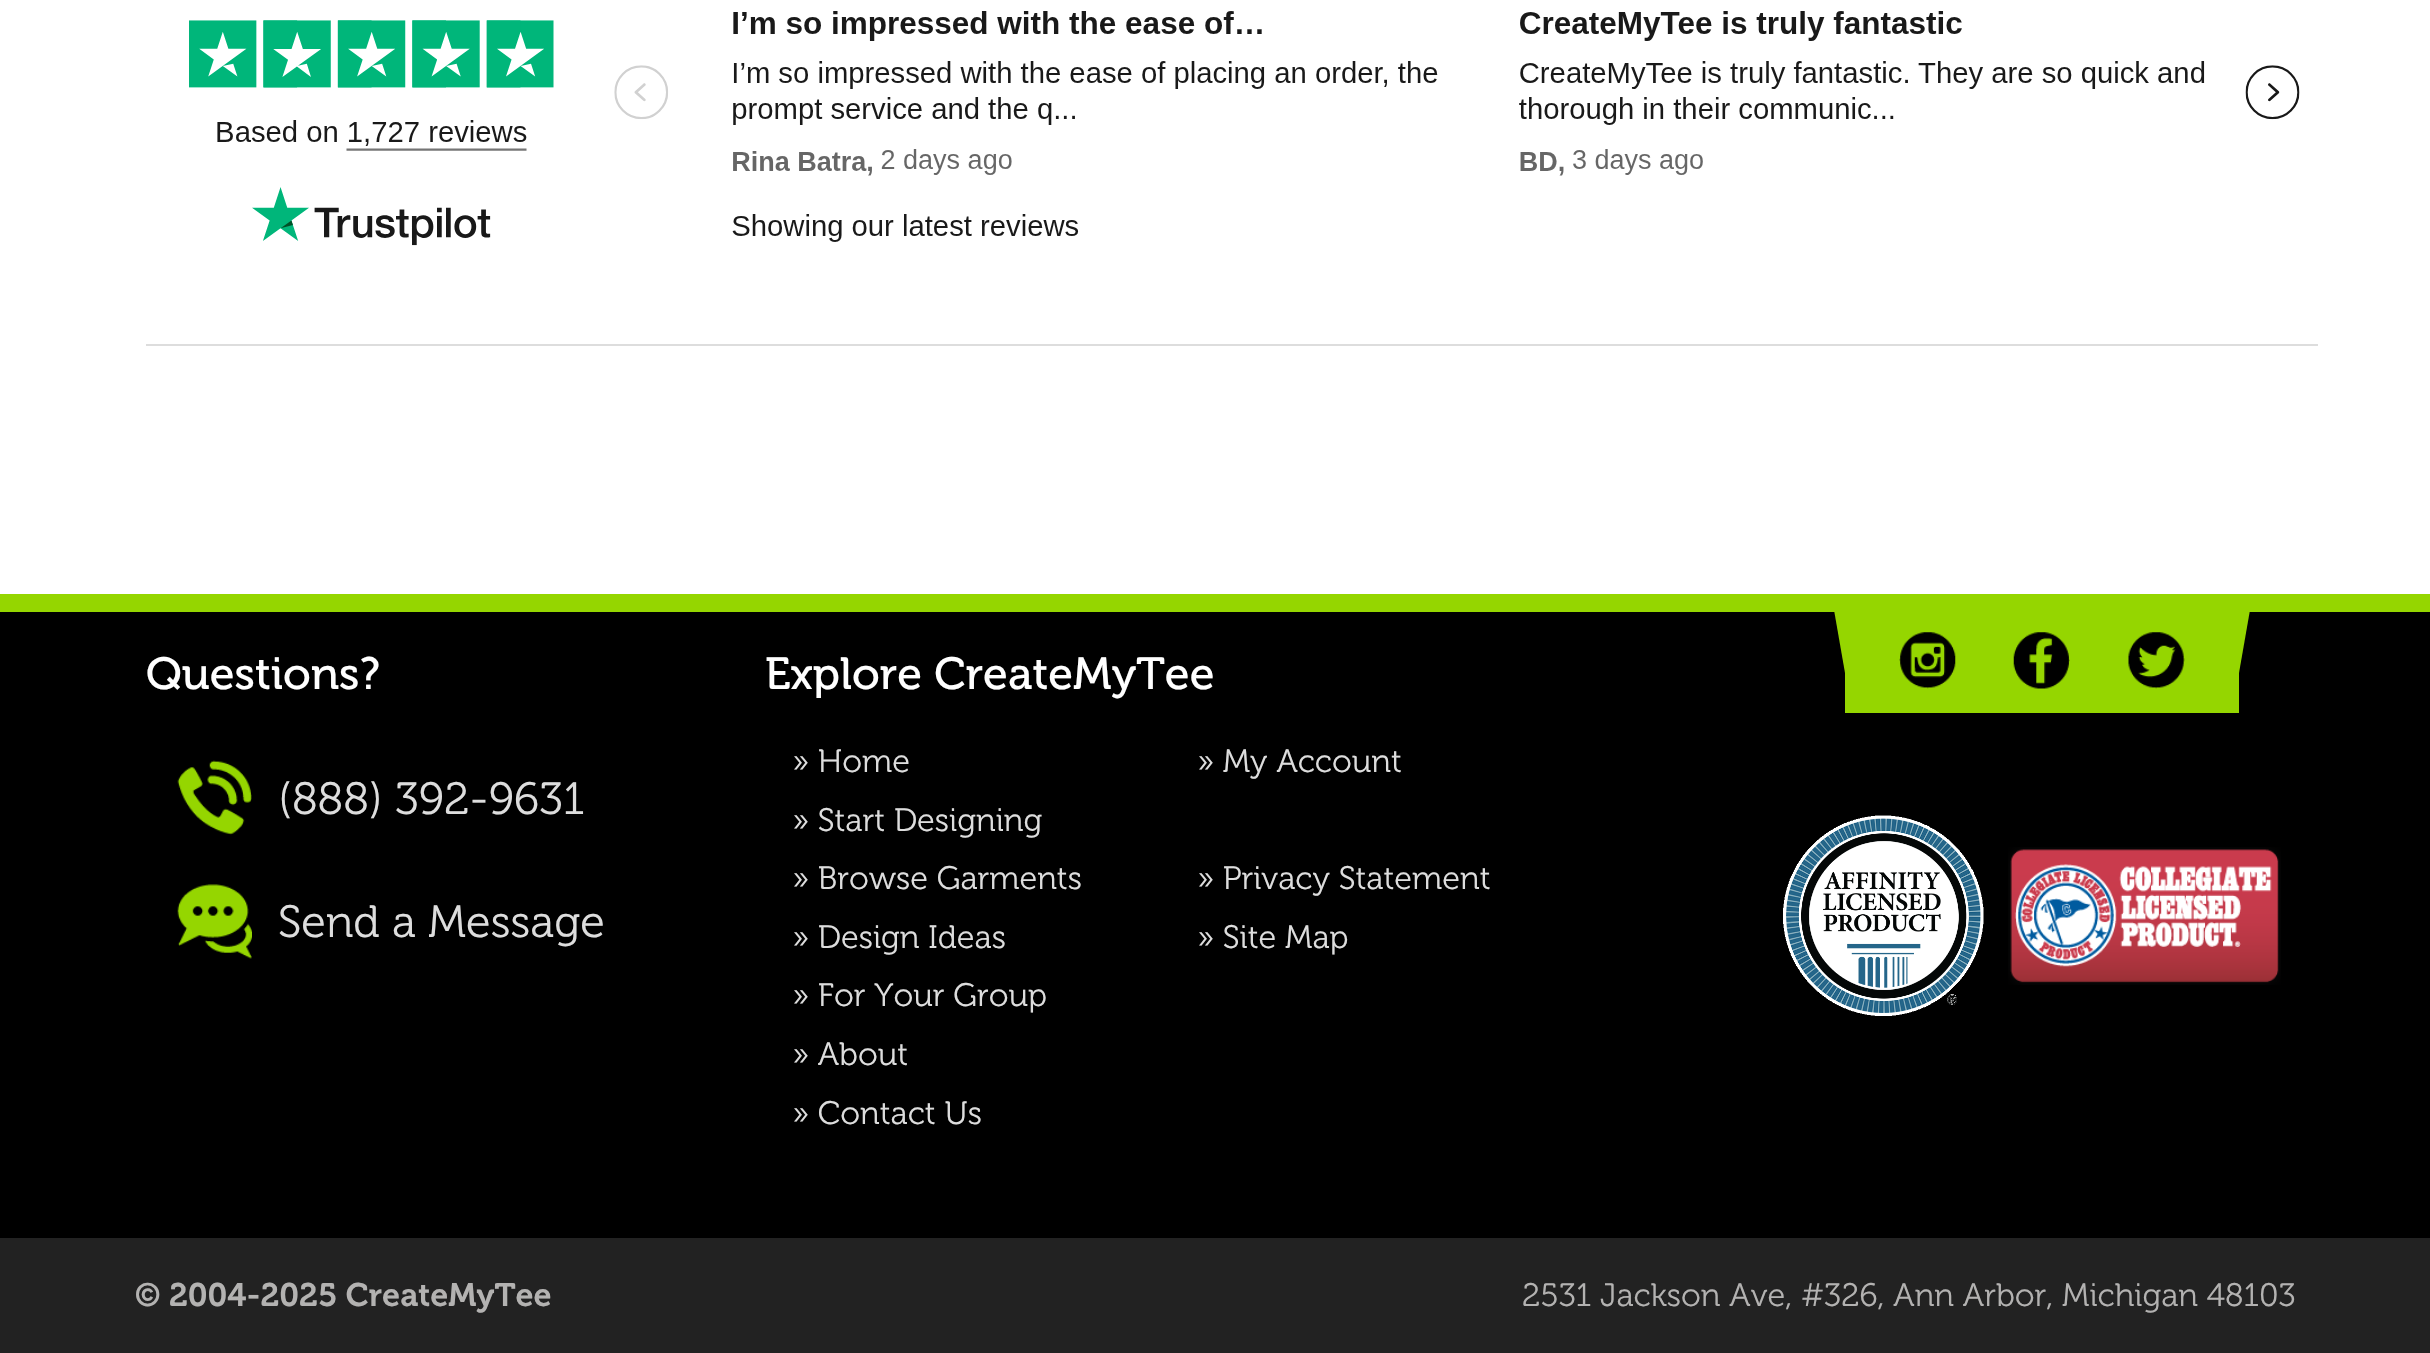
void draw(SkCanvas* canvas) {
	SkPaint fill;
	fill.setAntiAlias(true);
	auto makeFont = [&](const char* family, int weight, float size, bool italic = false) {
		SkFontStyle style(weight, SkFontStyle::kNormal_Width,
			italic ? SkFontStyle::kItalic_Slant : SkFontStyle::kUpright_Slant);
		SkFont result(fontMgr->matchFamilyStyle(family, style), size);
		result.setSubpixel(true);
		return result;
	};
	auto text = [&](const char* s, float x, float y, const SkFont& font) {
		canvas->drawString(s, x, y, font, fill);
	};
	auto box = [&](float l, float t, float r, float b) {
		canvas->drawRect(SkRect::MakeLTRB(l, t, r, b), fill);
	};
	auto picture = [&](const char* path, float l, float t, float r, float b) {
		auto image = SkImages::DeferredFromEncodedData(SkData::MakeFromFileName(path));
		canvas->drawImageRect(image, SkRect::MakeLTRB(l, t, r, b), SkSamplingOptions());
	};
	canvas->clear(0xFF222222);
	fill.setColor(0xFFFFFFFF);
	box(0, 0, 2430, 594);
	fill.setColor(0xFFDDDDDD);
	box(146, 344, 2318, 346);
	picture("image0.png", 189, 11, 2300, 246);
	fill.setColor(0xFF000000);
	box(0, 612, 2430, 1238);
	fill.setColor(0xFF95D600);
	box(0, 594, 2430, 612);
	picture("image1.png", 177, 760, 252, 835);
	picture("image2.png", 177, 884, 252, 959);
	picture("image3.png", 1783, 815, 1984, 1016);
	picture("image4.png", 2008, 847, 2281, 985);
	box(1845, 612, 2239, 713);
	canvas->drawPath(SkPathBuilder().moveTo(1834, 610).lineTo(1879, 610).lineTo(1897, 713).lineTo(1852, 713).close().detach(), fill);
	picture("image5.png", 1899, 632, 1956, 689);
	picture("image6.png", 2013, 632, 2070, 689);
	picture("image7.png", 2128, 632, 2185, 689);
	canvas->drawPath(SkPathBuilder().moveTo(2205, 610).lineTo(2250, 610).lineTo(2232, 713).lineTo(2187, 713).close().detach(), fill);
	auto font1 = makeFont("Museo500", 400, 45);
	fill.setColor(0xFFFFFFFF);
	text("Questions?", 146, 689, font1);
	auto font2 = makeFont("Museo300", 400, 45);
	fill.setColor(0xFFDDDDDD);
	text("(888) 392-9631", 278, 814, font2);
	text("Send a Message", 278, 937, font2);
	fill.setColor(0xFFFFFFFF);
	text("Explore CreateMyTee", 765, 689, font1);
	auto font3 = makeFont("Museo300", 400, 32.4f);
	fill.setColor(0xFFDDDDDD);
	text("» Home", 792, 772, font3);
	text("» Start Designing", 792, 831, font3);
	text("» Browse Garments", 792, 889, font3);
	text("» Design Ideas", 792, 948, font3);
	text("» For Your Group", 792, 1006, font3);
	text("» About", 792, 1065, font3);
	text("» Contact Us", 792, 1124, font3);
	text("» My Account", 1197, 772, font3);
	text("» Privacy Statement", 1197, 889, font3);
	text("» Site Map", 1197, 948, font3);
	auto font4 = makeFont("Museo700", 400, 32.4f);
	fill.setColor(0xFFB3B2B1);
	text("© 2004-2025 CreateMyTee", 135, 1306, font4);
	text("2531 Jackson Ave, #326, Ann Arbor, Michigan 48103", 1522, 1306, font3);
}
